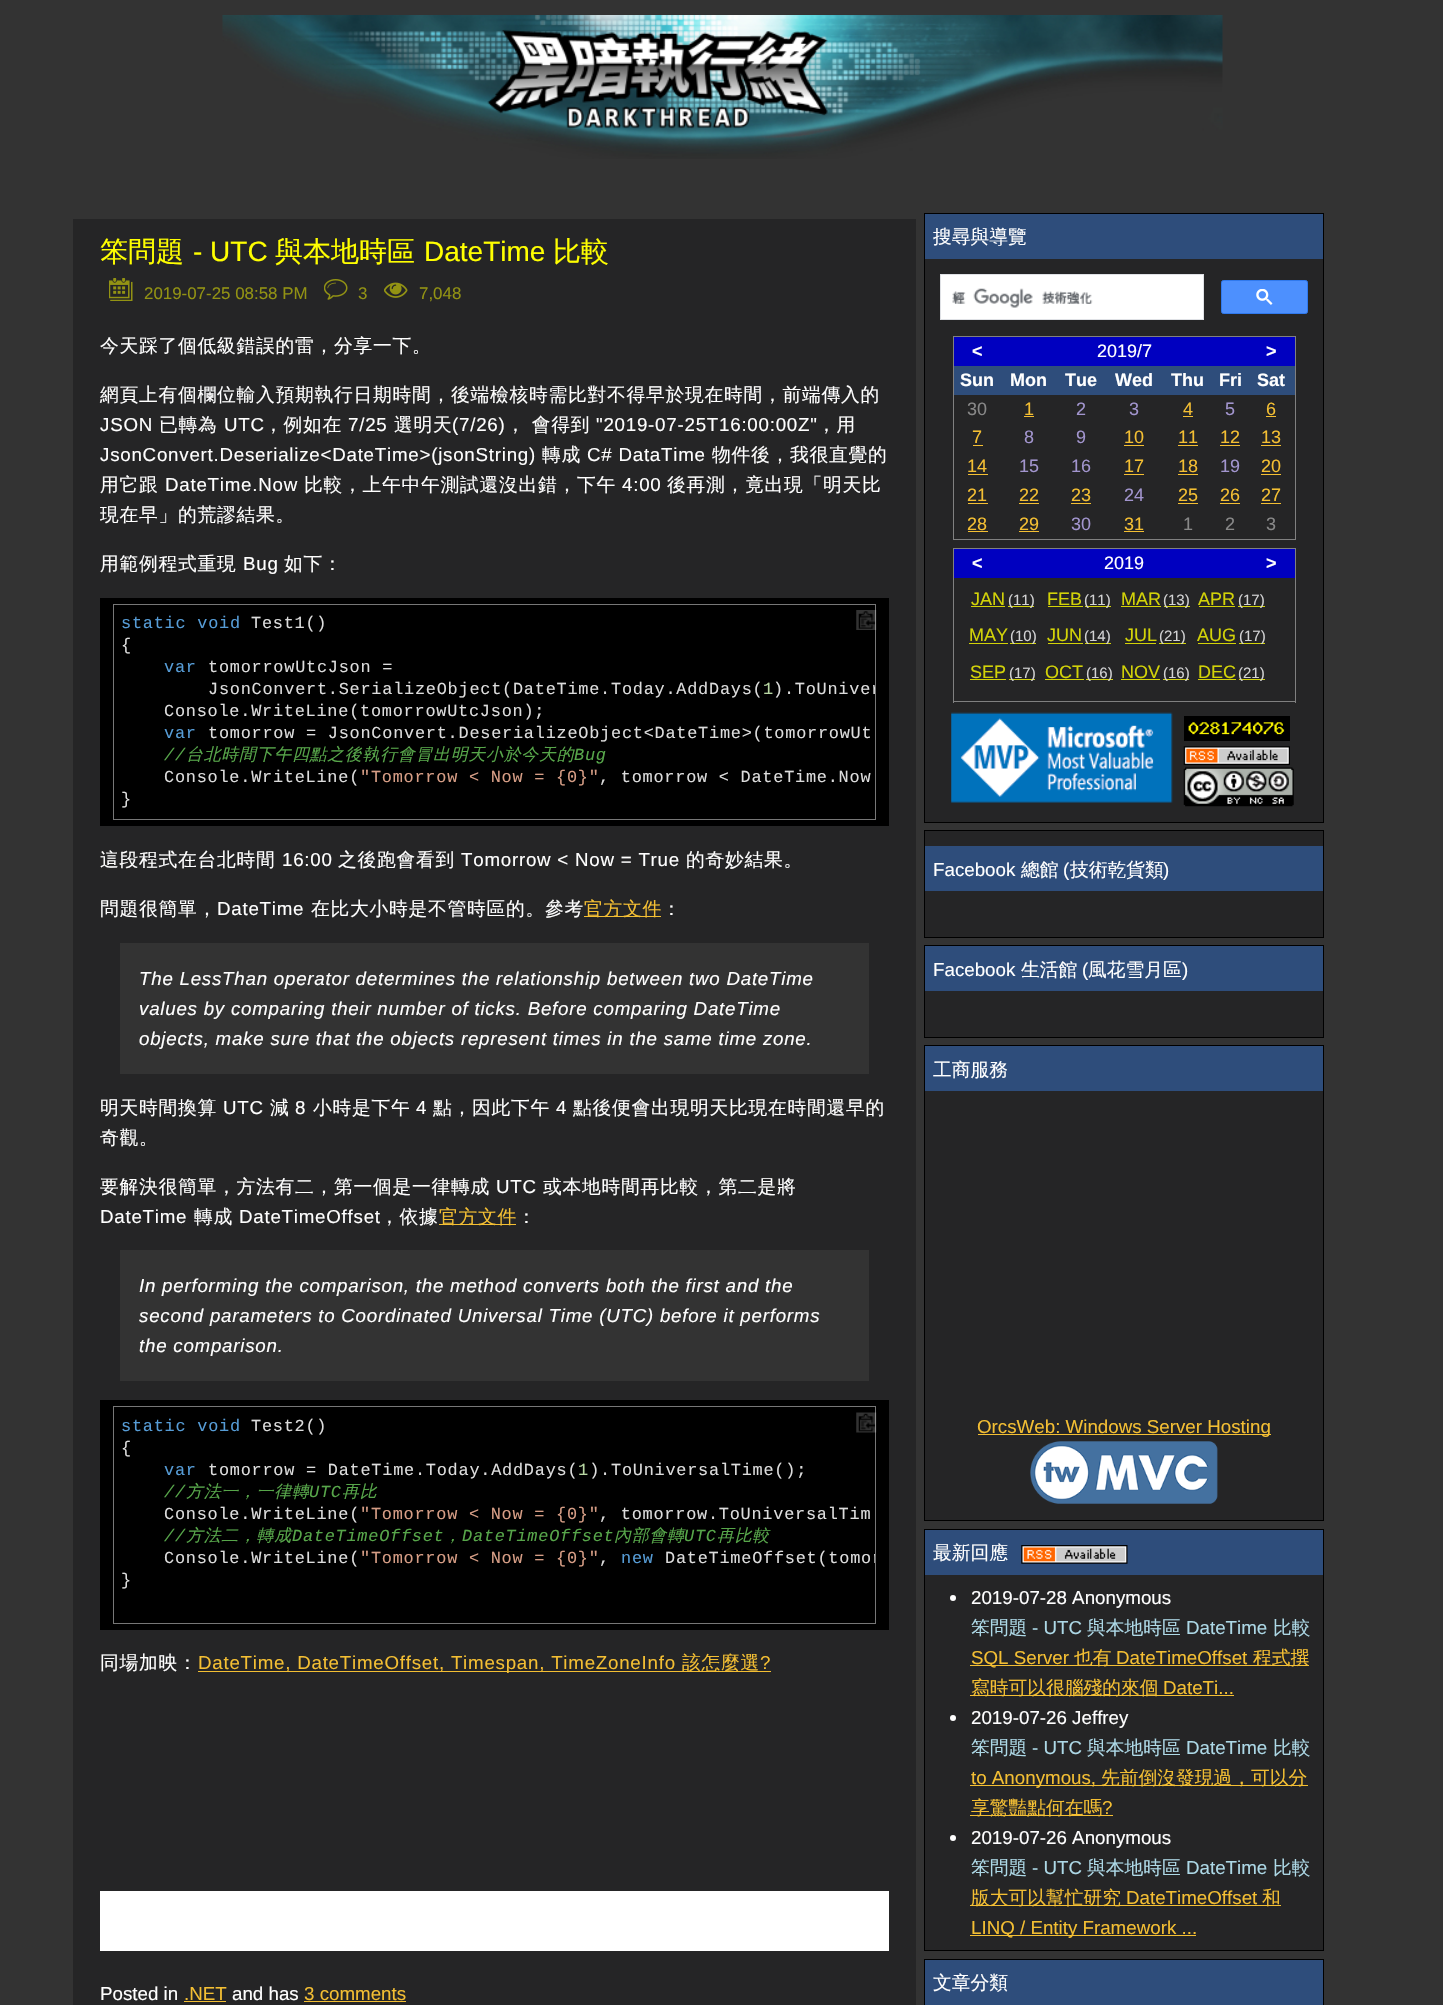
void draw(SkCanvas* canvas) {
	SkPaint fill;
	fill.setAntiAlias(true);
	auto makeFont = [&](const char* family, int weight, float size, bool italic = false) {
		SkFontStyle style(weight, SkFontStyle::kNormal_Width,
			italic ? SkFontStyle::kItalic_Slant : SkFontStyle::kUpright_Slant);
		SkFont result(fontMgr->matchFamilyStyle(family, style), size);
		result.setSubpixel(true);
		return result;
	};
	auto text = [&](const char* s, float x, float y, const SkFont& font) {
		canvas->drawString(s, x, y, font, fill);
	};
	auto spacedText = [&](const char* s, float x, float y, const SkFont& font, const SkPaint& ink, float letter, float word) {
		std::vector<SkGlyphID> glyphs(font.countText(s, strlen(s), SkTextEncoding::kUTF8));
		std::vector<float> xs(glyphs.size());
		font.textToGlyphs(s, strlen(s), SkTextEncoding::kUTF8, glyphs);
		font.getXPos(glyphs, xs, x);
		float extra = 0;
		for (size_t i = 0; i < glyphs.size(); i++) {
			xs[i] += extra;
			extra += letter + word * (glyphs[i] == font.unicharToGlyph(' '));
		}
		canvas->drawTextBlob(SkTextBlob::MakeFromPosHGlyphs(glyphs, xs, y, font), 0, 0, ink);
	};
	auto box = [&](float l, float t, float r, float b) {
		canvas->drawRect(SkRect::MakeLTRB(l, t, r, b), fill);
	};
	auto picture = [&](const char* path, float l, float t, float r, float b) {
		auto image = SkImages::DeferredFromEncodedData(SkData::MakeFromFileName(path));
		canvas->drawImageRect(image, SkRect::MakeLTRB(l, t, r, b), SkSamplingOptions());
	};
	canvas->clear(0xFF333333);
	picture("image0.png", 222, 15, 1223, 159);
	fill.setColor(0xFF252526);
	box(73, 219, 916, 2005);
	picture("image1.png", 109, 278, 133, 301);
	picture("image2.png", 324, 279, 348, 300);
	picture("image3.png", 384, 282, 408, 298);
	fill.setColor(0xFF000000);
	box(100, 598, 889, 826);
	fill.setStyle(SkPaint::kStroke_Style);
	fill.setStrokeWidth(1);
	fill.setColor(0xFF777777);
	canvas->drawRect(SkRect::MakeLTRB(113.5f, 604.5f, 875.5f, 819.5f), fill);
	picture("image4.png", 856, 610, 877, 630);
	fill.setStyle(SkPaint::kFill_Style);
	fill.setColor(0xFFF4BF33);
	box(584, 916, 661, 917);
	fill.setColor(0xFF333333);
	box(120, 943, 869, 1074);
	fill.setColor(0xFFF4BF33);
	box(439, 1224, 516, 1225);
	fill.setColor(0xFF333333);
	box(120, 1250, 869, 1381);
	fill.setColor(0xFF000000);
	box(100, 1400, 889, 1630);
	fill.setStyle(SkPaint::kStroke_Style);
	fill.setColor(0xFF777777);
	canvas->drawRect(SkRect::MakeLTRB(113.5f, 1406.5f, 875.5f, 1623.5f), fill);
	picture("image5.png", 856, 1412, 877, 1433);
	fill.setStyle(SkPaint::kFill_Style);
	fill.setColor(0xFFF4BF33);
	box(198, 1671, 771, 1672);
	fill.setColor(0xFFFFFFFF);
	box(100, 1891, 889, 1951);
	fill.setColor(0xFFF4BF33);
	box(184, 2001, 226, 2002);
	box(304, 2001, 406, 2002);
	fill.setColor(0xFF252526);
	box(925, 259, 1323, 822);
	fill.setStyle(SkPaint::kStroke_Style);
	fill.setColor(0xFF000000);
	canvas->drawRect(SkRect::MakeLTRB(924.5f, 213.5f, 1323.5f, 822.5f), fill);
	fill.setStyle(SkPaint::kFill_Style);
	fill.setColor(0xFF2E4D7B);
	box(925, 214, 1323, 259);
	fill.setColor(0xFFFFFFFF);
	canvas->drawRect(SkRect::MakeLTRB(940.5f, 274.5f, 1203.5f, 319.5f), fill);
	fill.setStyle(SkPaint::kStroke_Style);
	fill.setColor(0xFFDFE1E5);
	canvas->drawRect(SkRect::MakeLTRB(940.5f, 274.5f, 1203.5f, 319.5f), fill);
	picture("image6.png", 952, 288, 1093, 308);
	fill.setStyle(SkPaint::kFill_Style);
	fill.setColor(0xFF4D90FE);
	canvas->drawRoundRect(SkRect::MakeLTRB(1221.5f, 280.5f, 1307.5f, 313.5f), 2, 2, fill);
	fill.setStyle(SkPaint::kStroke_Style);
	fill.setColor(0xFF3079ED);
	canvas->drawRoundRect(SkRect::MakeLTRB(1221.5f, 280.5f, 1307.5f, 313.5f), 2, 2, fill);
	picture("image7.png", 1256, 289, 1273, 305);
	fill.setStyle(SkPaint::kFill_Style);
	fill.setColor(0xFF808080);
	box(953, 336, 1296, 337);
	box(1295, 336, 1296, 540);
	box(953, 539, 1296, 540);
	box(953, 336, 954, 540);
	fill.setColor(0xFF0000C0);
	box(954, 337, 1295, 366);
	fill.setColor(0xFF2E4D7B);
	box(954, 366, 1295, 395);
	fill.setColor(0xFFF4BF33);
	box(1024, 416, 1034, 417);
	box(1183, 416, 1193, 417);
	box(1266, 416, 1276, 417);
	box(973, 445, 983, 446);
	box(1124, 445, 1144, 446);
	box(1178, 445, 1198, 446);
	box(1220, 445, 1240, 446);
	box(1261, 445, 1281, 446);
	box(968, 474, 988, 475);
	box(1124, 474, 1144, 475);
	box(1178, 474, 1198, 475);
	box(1261, 474, 1281, 475);
	box(968, 503, 988, 504);
	box(1019, 503, 1039, 504);
	box(1071, 503, 1091, 504);
	box(1178, 503, 1198, 504);
	box(1220, 503, 1240, 504);
	box(1261, 503, 1281, 504);
	box(968, 531, 988, 532);
	box(1019, 531, 1039, 532);
	box(1124, 531, 1144, 532);
	fill.setColor(0xFF808080);
	box(953, 548, 1296, 549);
	box(1295, 548, 1296, 703);
	box(953, 701, 1296, 702);
	box(953, 548, 954, 703);
	fill.setColor(0xFF0000C0);
	box(954, 549, 1295, 578);
	fill.setColor(0xFFD3D308);
	box(971, 606, 1005, 607);
	box(1008, 606, 1034, 607);
	box(1048, 606, 1083, 607);
	box(1085, 606, 1111, 607);
	box(1121, 606, 1161, 607);
	box(1164, 606, 1190, 607);
	box(1199, 606, 1235, 607);
	box(1238, 606, 1265, 607);
	box(969, 643, 1008, 644);
	box(1010, 643, 1036, 644);
	box(1048, 643, 1083, 644);
	box(1085, 643, 1111, 644);
	box(1125, 643, 1156, 644);
	box(1159, 643, 1186, 644);
	box(1198, 643, 1236, 644);
	box(1239, 643, 1265, 644);
	box(970, 679, 1006, 680);
	box(1009, 679, 1035, 680);
	box(1045, 679, 1084, 680);
	box(1086, 679, 1113, 680);
	box(1121, 679, 1160, 680);
	box(1163, 679, 1189, 680);
	box(1198, 679, 1236, 680);
	box(1239, 679, 1265, 680);
	picture("image8.png", 951, 712, 1173, 803);
	fill.setStyle(SkPaint::kStroke_Style);
	fill.setStrokeWidth(3);
	fill.setColor(0xFF000000);
	canvas->drawRect(SkRect::MakeLTRB(1185.5f, 717.5f, 1288.5f, 739.5f), fill);
	picture("image9.png", 1187, 719, 1287, 738);
	picture("image10.png", 1183, 746, 1290, 765);
	picture("image11.png", 1183, 767, 1294, 807);
	fill.setStyle(SkPaint::kFill_Style);
	fill.setColor(0xFF252526);
	canvas->drawRect(SkRect::MakeLTRB(924.5f, 830.5f, 1323.5f, 937.5f), fill);
	fill.setStyle(SkPaint::kStroke_Style);
	fill.setStrokeWidth(1);
	fill.setColor(0xFF000000);
	canvas->drawRect(SkRect::MakeLTRB(924.5f, 830.5f, 1323.5f, 937.5f), fill);
	fill.setStyle(SkPaint::kFill_Style);
	fill.setColor(0xFF2E4D7B);
	box(925, 846, 1323, 891);
	fill.setColor(0xFF252526);
	box(925, 991, 1323, 1037);
	fill.setStyle(SkPaint::kStroke_Style);
	fill.setColor(0xFF000000);
	canvas->drawRect(SkRect::MakeLTRB(924.5f, 945.5f, 1323.5f, 1037.5f), fill);
	fill.setStyle(SkPaint::kFill_Style);
	fill.setColor(0xFF2E4D7B);
	box(925, 946, 1323, 991);
	fill.setColor(0xFF252526);
	box(925, 1091, 1323, 1520);
	fill.setStyle(SkPaint::kStroke_Style);
	fill.setColor(0xFF000000);
	canvas->drawRect(SkRect::MakeLTRB(924.5f, 1045.5f, 1323.5f, 1520.5f), fill);
	fill.setStyle(SkPaint::kFill_Style);
	fill.setColor(0xFF2E4D7B);
	box(925, 1046, 1323, 1091);
	fill.setColor(0xFFF4BF33);
	box(978, 1434, 1271, 1435);
	picture("image12.png", 1030, 1441, 1218, 1504);
	fill.setColor(0xFF252526);
	box(925, 1575, 1323, 1950);
	fill.setStyle(SkPaint::kStroke_Style);
	fill.setColor(0xFF000000);
	canvas->drawRect(SkRect::MakeLTRB(924.5f, 1529.5f, 1323.5f, 1950.5f), fill);
	fill.setStyle(SkPaint::kFill_Style);
	fill.setColor(0xFF2E4D7B);
	box(925, 1530, 1323, 1575);
	picture("image13.png", 1021, 1545, 1128, 1564);
	fill.setColor(0xFFFFFFFF);
	canvas->drawCircle(953, 1598, 3, fill);
	fill.setColor(0xFFF4BF33);
	box(970, 1665, 1309, 1666);
	box(970, 1695, 1234, 1696);
	fill.setColor(0xFFFFFFFF);
	canvas->drawCircle(953, 1718, 3, fill);
	fill.setColor(0xFFF4BF33);
	box(970, 1785, 1308, 1786);
	box(970, 1815, 1113, 1816);
	fill.setColor(0xFFFFFFFF);
	canvas->drawCircle(953, 1838, 3, fill);
	fill.setColor(0xFFF4BF33);
	box(970, 1905, 1281, 1906);
	box(970, 1935, 1196, 1936);
	fill.setStyle(SkPaint::kStroke_Style);
	fill.setColor(0xFF000000);
	canvas->drawRect(SkRect::MakeLTRB(924.5f, 1959.5f, 1323.5f, 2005.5f), fill);
	fill.setStyle(SkPaint::kFill_Style);
	fill.setColor(0xFF2E4D7B);
	box(925, 1960, 1323, 2005);
	auto font1 = makeFont("WenQuanYi Zen Hei", 500, 28);
	fill.setColor(0xFFFFFF00);
	text("笨問題", 100, 261, font1);
	auto font2 = makeFont("Liberation Sans", 400, 28);
	text("- UTC", 193, 261, font2);
	text("與本地時區", 275, 261, font1);
	text("DateTime", 424, 261, font2);
	text("比較", 553, 261, font1);
	auto font3 = makeFont("Liberation Sans", 400, 16.9f);
	fill.setColor(0xFF929213);
	text("2019-07-25 08:58 PM", 144, 299, font3);
	text("3", 358, 299, font3);
	text("7,048", 419, 299, font3);
	auto font4 = makeFont("WenQuanYi Zen Hei", 500, 18.75f);
	fill.setColor(0xFFFFFFFF);
	spacedText("今天踩了個低級錯誤的雷，分享一下。", 100, 352, font4, fill, 0.75f, 0);
	spacedText("網頁上有個欄位輸入預期執行日期時間，後端檢核時需比對不得早於現在時間，前端傳入的", 100, 401, font4, fill, 0.75f, 0);
	auto font5 = makeFont("Liberation Sans", 400, 18.75f);
	spacedText("JSON", 100, 431, font5, fill, 0.75f, 0);
	spacedText("已轉為", 159, 431, font4, fill, 0.75f, 0);
	spacedText("UTC", 224, 431, font5, fill, 0.75f, 0);
	spacedText("，例如在", 264, 431, font4, fill, 0.75f, 0);
	spacedText("7/25", 348, 431, font5, fill, 0.75f, 0);
	spacedText("選明天", 394, 431, font4, fill, 0.75f, 0);
	spacedText("(7/26)", 452, 431, font5, fill, 0.75f, 0);
	spacedText("， 會得到", 506, 431, font4, fill, 0.75f, 0);
	spacedText("\"2019-07-25T16:00:00Z\"", 596, 431, font5, fill, 0.75f, 0);
	spacedText("，用", 817, 431, font4, fill, 0.75f, 0);
	spacedText("JsonConvert.Deserialize<DateTime>(jsonString)", 100, 461, font5, fill, 0.75f, 0);
	spacedText("轉成", 542, 461, font4, fill, 0.75f, 0);
	spacedText("C# DataTime", 587, 461, font5, fill, 0.75f, 0);
	spacedText("物件後，我很直覺的", 712, 461, font4, fill, 0.75f, 0);
	spacedText("用它跟", 100, 491, font4, fill, 0.75f, 0);
	spacedText("DateTime.Now", 165, 491, font5, fill, 0.75f, 0);
	spacedText("比較，上午中午測試還沒出錯，下午", 304, 491, font4, fill, 0.75f, 0);
	spacedText("4:00", 622, 491, font5, fill, 0.75f, 0);
	spacedText("後再測，竟出現「明天比", 667, 491, font4, fill, 0.75f, 0);
	spacedText("現在早」的荒謬結果。", 100, 521, font4, fill, 0.75f, 0);
	spacedText("用範例程式重現", 100, 570, font4, fill, 0.75f, 0);
	spacedText("Bug", 243, 570, font5, fill, 0.75f, 0);
	spacedText("如下：", 284, 570, font4, fill, 0.75f, 0);
	auto font6 = makeFont("Liberation Mono", 400, 16.9f);
	fill.setColor(0xFF569CD6);
	spacedText("static void", 121, 628, font6, fill, 0.75f, 0);
	fill.setColor(0xFFDCDCDC);
	spacedText("Test1()", 251, 628, font6, fill, 0.75f, 0);
	spacedText("{", 121, 650, font6, fill, 0.75f, 0);
	fill.setColor(0xFF569CD6);
	spacedText("var", 164, 672, font6, fill, 0.75f, 0);
	fill.setColor(0xFFDCDCDC);
	spacedText("tomorrowUtcJson =", 208, 672, font6, fill, 0.75f, 0);
	spacedText("JsonConvert.SerializeObject(DateTime.Today.AddDays(", 208, 694, font6, fill, 0.75f, 0);
	fill.setColor(0xFFB8D7A3);
	spacedText("1", 763, 694, font6, fill, 0.75f, 0);
	canvas->save();
	canvas->clipRect(SkRect::MakeLTRB(114, 605, 875, 819));
	fill.setColor(0xFFDCDCDC);
	spacedText(").ToUniver", 773, 694, font6, fill, 0.75f, 0);
	canvas->restore();
	spacedText("Console.WriteLine(tomorrowUtcJson);", 164, 716, font6, fill, 0.75f, 0);
	fill.setColor(0xFF569CD6);
	spacedText("var", 164, 738, font6, fill, 0.75f, 0);
	fill.setColor(0xFFDCDCDC);
	spacedText("tomorrow = JsonConvert.DeserializeObject<DateTime>(tomorrowUt", 208, 738, font6, fill, 0.75f, 0);
	auto font7 = makeFont("Liberation Mono", 400, 16.9f, true);
	fill.setColor(0xFF57A64A);
	spacedText("//", 164, 760, font7, fill, 0.75f, 0);
	auto font8 = makeFont("WenQuanYi Zen Hei", 500, 16.9f, true);
	spacedText("台北時間下午四點之後執行會冒出明天小於今天的", 186, 760, font8, fill, 0.75f, 0);
	spacedText("Bug", 574, 760, font7, fill, 0.75f, 0);
	fill.setColor(0xFFDCDCDC);
	spacedText("Console.WriteLine(", 164, 782, font6, fill, 0.75f, 0);
	fill.setColor(0xFFD69D85);
	spacedText("\"Tomorrow < Now = {0}\"", 360, 782, font6, fill, 0.75f, 0);
	fill.setColor(0xFFDCDCDC);
	spacedText(", tomorrow < DateTime.Now", 599, 782, font6, fill, 0.75f, 0);
	spacedText("}", 121, 804, font6, fill, 0.75f, 0);
	fill.setColor(0xFFFFFFFF);
	spacedText("這段程式在台北時間", 100, 866, font4, fill, 0.75f, 0);
	spacedText("16:00", 282, 866, font5, fill, 0.75f, 0);
	spacedText("之後跑會看到", 338, 866, font4, fill, 0.75f, 0);
	spacedText("Tomorrow < Now = True", 461, 866, font5, fill, 0.75f, 0);
	spacedText("的奇妙結果。", 686, 866, font4, fill, 0.75f, 0);
	spacedText("問題很簡單，", 100, 915, font4, fill, 0.75f, 0);
	spacedText("DateTime", 217, 915, font5, fill, 0.75f, 0);
	spacedText("在比大小時是不管時區的。參考", 311, 915, font4, fill, 0.75f, 0);
	fill.setColor(0xFFF4BF33);
	spacedText("官方文件", 584, 915, font4, fill, 0.75f, 0);
	fill.setColor(0xFFFFFFFF);
	spacedText("：", 662, 915, font4, fill, 0.75f, 0);
	auto font9 = makeFont("Liberation Sans", 400, 18.75f, true);
	spacedText("The LessThan operator determines the relationship between two DateTime", 139, 985, font9, fill, 0.75f, 0);
	spacedText("values by comparing their number of ticks. Before comparing DateTime", 139, 1015, font9, fill, 0.75f, 0);
	spacedText("objects, make sure that the objects represent times in the same time zone.", 139, 1045, font9, fill, 0.75f, 0);
	spacedText("明天時間換算", 100, 1114, font4, fill, 0.75f, 0);
	spacedText("UTC", 223, 1114, font5, fill, 0.75f, 0);
	spacedText("減", 270, 1114, font4, fill, 0.75f, 0);
	spacedText("8", 295, 1114, font5, fill, 0.75f, 0);
	spacedText("小時是下午", 313, 1114, font4, fill, 0.75f, 0);
	spacedText("4", 416, 1114, font5, fill, 0.75f, 0);
	spacedText("點，因此下午", 433, 1114, font4, fill, 0.75f, 0);
	spacedText("4", 556, 1114, font5, fill, 0.75f, 0);
	spacedText("點後便會出現明天比現在時間還早的", 573, 1114, font4, fill, 0.75f, 0);
	spacedText("奇觀。", 100, 1144, font4, fill, 0.75f, 0);
	spacedText("要解決很簡單，方法有二，第一個是一律轉成", 100, 1193, font4, fill, 0.75f, 0);
	spacedText("UTC", 496, 1193, font5, fill, 0.75f, 0);
	spacedText("或本地時間再比較，第二是將", 543, 1193, font4, fill, 0.75f, 0);
	spacedText("DateTime", 100, 1223, font5, fill, 0.75f, 0);
	spacedText("轉成", 194, 1223, font4, fill, 0.75f, 0);
	spacedText("DateTimeOffset", 239, 1223, font5, fill, 0.75f, 0);
	spacedText("，依據", 380, 1223, font4, fill, 0.75f, 0);
	fill.setColor(0xFFF4BF33);
	spacedText("官方文件", 439, 1223, font4, fill, 0.75f, 0);
	fill.setColor(0xFFFFFFFF);
	spacedText("：", 517, 1223, font4, fill, 0.75f, 0);
	spacedText("In performing the comparison, the method converts both the first and the", 139, 1292, font9, fill, 0.75f, 0);
	spacedText("second parameters to Coordinated Universal Time (UTC) before it performs", 139, 1322, font9, fill, 0.75f, 0);
	spacedText("the comparison.", 139, 1352, font9, fill, 0.75f, 0);
	fill.setColor(0xFF569CD6);
	spacedText("static void", 121, 1431, font6, fill, 0.75f, 0);
	fill.setColor(0xFFDCDCDC);
	spacedText("Test2()", 251, 1431, font6, fill, 0.75f, 0);
	spacedText("{", 121, 1453, font6, fill, 0.75f, 0);
	spacedText("tomorrow = DateTime.Today.AddDays( ).ToUniversalTime();", 208, 1475, font6, fill, 0.75f, 0);
	fill.setColor(0xFF569CD6);
	spacedText("var", 164, 1475, font6, fill, 0.75f, 0);
	fill.setColor(0xFFB8D7A3);
	spacedText("1", 578, 1475, font6, fill, 0.75f, 0);
	fill.setColor(0xFF57A64A);
	spacedText("//", 164, 1497, font7, fill, 0.75f, 0);
	spacedText("方法一，一律轉", 186, 1497, font8, fill, 0.75f, 0);
	spacedText("UTC", 309, 1497, font7, fill, 0.75f, 0);
	spacedText("再比", 342, 1497, font8, fill, 0.75f, 0);
	fill.setColor(0xFFDCDCDC);
	spacedText("Console.WriteLine(", 164, 1519, font6, fill, 0.75f, 0);
	fill.setColor(0xFFD69D85);
	spacedText("\"Tomorrow < Now = {0}\"", 360, 1519, font6, fill, 0.75f, 0);
	fill.setColor(0xFFDCDCDC);
	spacedText(", tomorrow.ToUniversalTim", 599, 1519, font6, fill, 0.75f, 0);
	fill.setColor(0xFF57A64A);
	spacedText("//", 164, 1541, font7, fill, 0.75f, 0);
	spacedText("方法二，轉成", 186, 1541, font8, fill, 0.75f, 0);
	spacedText("DateTimeOffset", 292, 1541, font7, fill, 0.75f, 0);
	spacedText("，", 444, 1541, font8, fill, 0.75f, 0);
	spacedText("DateTimeOffset", 462, 1541, font7, fill, 0.75f, 0);
	spacedText("內部會轉", 614, 1541, font8, fill, 0.75f, 0);
	spacedText("UTC", 684, 1541, font7, fill, 0.75f, 0);
	spacedText("再比較", 717, 1541, font8, fill, 0.75f, 0);
	fill.setColor(0xFFDCDCDC);
	spacedText("Console.WriteLine(", 164, 1563, font6, fill, 0.75f, 0);
	fill.setColor(0xFFD69D85);
	spacedText("\"Tomorrow < Now = {0}\"", 360, 1563, font6, fill, 0.75f, 0);
	fill.setColor(0xFFDCDCDC);
	spacedText(",", 599, 1563, font6, fill, 0.75f, 0);
	fill.setColor(0xFF569CD6);
	spacedText("new", 621, 1563, font6, fill, 0.75f, 0);
	canvas->save();
	canvas->clipRect(SkRect::MakeLTRB(114, 1408, 875, 1623));
	fill.setColor(0xFFDCDCDC);
	spacedText("DateTimeOffset(tomor", 665, 1563, font6, fill, 0.75f, 0);
	canvas->restore();
	spacedText("}", 121, 1585, font6, fill, 0.75f, 0);
	fill.setColor(0xFFFFFFFF);
	spacedText("同場加映：", 100, 1669, font4, fill, 0.75f, 0);
	fill.setColor(0xFFF4BF33);
	spacedText("DateTime, DateTimeOffset, Timespan, TimeZoneInfo", 198, 1669, font5, fill, 0.75f, 0);
	spacedText("該怎麼選", 682, 1669, font4, fill, 0.75f, 0);
	spacedText("?", 760, 1669, font5, fill, 0.75f, 0);
	fill.setColor(0xFFFFFFFF);
	text("Posted in", 100, 2000, font5);
	fill.setColor(0xFFF4BF33);
	text(".NET", 184, 2000, font5);
	fill.setColor(0xFFFFFFFF);
	text("and has", 232, 2000, font5);
	fill.setColor(0xFFF4BF33);
	text("3 comments", 304, 2000, font5);
	fill.setColor(0xFFFFFFFF);
	text("搜尋與導覽", 933, 243, font4);
	auto font10 = makeFont("Liberation Sans", 700, 18);
	text("<", 972, 357, font10);
	auto font11 = makeFont("Liberation Sans", 400, 18);
	text("2019/7", 1097, 357, font11);
	text(">", 1266, 357, font10);
	text("Sun", 960, 386, font10);
	text("Mon", 1010, 386, font10);
	text("Tue", 1065, 386, font10);
	text("Wed", 1115, 386, font10);
	text("Thu", 1171, 386, font10);
	text("Fri", 1219, 386, font10);
	text("Sat", 1257, 386, font10);
	fill.setColor(0xFF888888);
	text("30", 967, 415, font11);
	fill.setColor(0xFFF4BF33);
	text("1", 1024, 415, font11);
	fill.setColor(0xFFA295CE);
	text("2", 1076, 415, font11);
	text("3", 1129, 415, font11);
	fill.setColor(0xFFF4BF33);
	text("4", 1183, 415, font11);
	fill.setColor(0xFFA295CE);
	text("5", 1225, 415, font11);
	fill.setColor(0xFFF4BF33);
	text("6", 1266, 415, font11);
	text("7", 972, 443, font11);
	fill.setColor(0xFFA295CE);
	text("8", 1024, 443, font11);
	text("9", 1076, 443, font11);
	fill.setColor(0xFFF4BF33);
	text("10", 1124, 443, font11);
	text("11", 1178, 443, font11);
	text("12", 1220, 443, font11);
	text("13", 1261, 443, font11);
	text("14", 967, 472, font11);
	fill.setColor(0xFFA295CE);
	text("15", 1019, 472, font11);
	text("16", 1071, 472, font11);
	fill.setColor(0xFFF4BF33);
	text("17", 1124, 472, font11);
	text("18", 1178, 472, font11);
	fill.setColor(0xFFA295CE);
	text("19", 1220, 472, font11);
	fill.setColor(0xFFF4BF33);
	text("20", 1261, 472, font11);
	text("21", 967, 501, font11);
	text("22", 1019, 501, font11);
	text("23", 1071, 501, font11);
	fill.setColor(0xFFA295CE);
	text("24", 1124, 501, font11);
	fill.setColor(0xFFF4BF33);
	text("25", 1178, 501, font11);
	text("26", 1220, 501, font11);
	text("27", 1261, 501, font11);
	text("28", 967, 530, font11);
	text("29", 1019, 530, font11);
	fill.setColor(0xFFA295CE);
	text("30", 1071, 530, font11);
	fill.setColor(0xFFF4BF33);
	text("31", 1124, 530, font11);
	fill.setColor(0xFF888888);
	text("1", 1183, 530, font11);
	text("2", 1225, 530, font11);
	text("3", 1266, 530, font11);
	fill.setColor(0xFFFFFFFF);
	text("<", 972, 569, font10);
	text("2019", 1104, 569, font11);
	text(">", 1266, 569, font10);
	fill.setColor(0xFFD3D308);
	text("JAN", 971, 605, font11);
	auto font12 = makeFont("Liberation Sans", 400, 15);
	fill.setColor(0xFFD3D3D4);
	text("(11)", 1008, 605, font12);
	fill.setColor(0xFFD3D308);
	text("FEB", 1047, 605, font11);
	fill.setColor(0xFFD3D3D4);
	text("(11)", 1084, 605, font12);
	fill.setColor(0xFFD3D308);
	text("MAR", 1121, 605, font11);
	fill.setColor(0xFFD3D3D4);
	text("(13)", 1163, 605, font12);
	fill.setColor(0xFFD3D308);
	text("APR", 1198, 605, font11);
	fill.setColor(0xFFD3D3D4);
	text("(17)", 1238, 605, font12);
	fill.setColor(0xFFD3D308);
	text("MAY", 969, 641, font11);
	fill.setColor(0xFFD3D3D4);
	text("(10)", 1010, 641, font12);
	fill.setColor(0xFFD3D308);
	text("JUN", 1047, 641, font11);
	fill.setColor(0xFFD3D3D4);
	text("(14)", 1084, 641, font12);
	fill.setColor(0xFFD3D308);
	text("JUL", 1125, 641, font11);
	fill.setColor(0xFFD3D3D4);
	text("(21)", 1159, 641, font12);
	fill.setColor(0xFFD3D308);
	text("AUG", 1197, 641, font11);
	fill.setColor(0xFFD3D3D4);
	text("(17)", 1239, 641, font12);
	fill.setColor(0xFFD3D308);
	text("SEP", 970, 678, font11);
	fill.setColor(0xFFD3D3D4);
	text("(17)", 1009, 678, font12);
	fill.setColor(0xFFD3D308);
	text("OCT", 1045, 678, font11);
	fill.setColor(0xFFD3D3D4);
	text("(16)", 1086, 678, font12);
	fill.setColor(0xFFD3D308);
	text("NOV", 1121, 678, font11);
	fill.setColor(0xFFD3D3D4);
	text("(16)", 1163, 678, font12);
	fill.setColor(0xFFD3D308);
	text("DEC", 1198, 678, font11);
	fill.setColor(0xFFD3D3D4);
	text("(21)", 1238, 678, font12);
	fill.setColor(0xFFFFFFFF);
	text("Facebook", 933, 876, font5);
	text("總館", 1021, 876, font4);
	text("(", 1063, 876, font5);
	text("技術乾貨類", 1070, 876, font4);
	text(")", 1163, 876, font5);
	text("Facebook", 933, 976, font5);
	text("生活館", 1021, 976, font4);
	text("(", 1082, 976, font5);
	text("風花雪月區", 1088, 976, font4);
	text(")", 1182, 976, font5);
	text("工商服務", 933, 1076, font4);
	fill.setColor(0xFFF4BF33);
	text("OrcsWeb: Windows Server Hosting", 977, 1433, font5);
	fill.setColor(0xFFFFFFFF);
	text("最新回應", 933, 1559, font4);
	text("2019-07-28 Anonymous", 971, 1604, font5);
	fill.setColor(0xFFADD8E6);
	text("笨問題", 971, 1634, font4);
	text("- UTC", 1032, 1634, font5);
	text("與本地時區", 1087, 1634, font4);
	text("DateTime", 1186, 1634, font5);
	text("比較", 1273, 1634, font4);
	fill.setColor(0xFFF4BF33);
	text("SQL Server", 971, 1664, font5);
	text("也有", 1074, 1664, font4);
	text("DateTimeOffset", 1116, 1664, font5);
	text("程式撰", 1253, 1664, font4);
	text("寫時可以很腦殘的來個", 971, 1694, font4);
	text("DateTi...", 1163, 1694, font5);
	fill.setColor(0xFFFFFFFF);
	text("2019-07-26 Jeffrey", 971, 1724, font5);
	fill.setColor(0xFFADD8E6);
	text("笨問題", 971, 1754, font4);
	text("- UTC", 1032, 1754, font5);
	text("與本地時區", 1087, 1754, font4);
	text("DateTime", 1186, 1754, font5);
	text("比較", 1273, 1754, font4);
	fill.setColor(0xFFF4BF33);
	text("to Anonymous,", 971, 1784, font5);
	text("先前倒沒發現過，可以分", 1101, 1784, font4);
	text("享驚豔點何在嗎", 971, 1814, font4);
	text("?", 1102, 1814, font5);
	fill.setColor(0xFFFFFFFF);
	text("2019-07-26 Anonymous", 971, 1844, font5);
	fill.setColor(0xFFADD8E6);
	text("笨問題", 971, 1874, font4);
	text("- UTC", 1032, 1874, font5);
	text("與本地時區", 1087, 1874, font4);
	text("DateTime", 1186, 1874, font5);
	text("比較", 1273, 1874, font4);
	fill.setColor(0xFFF4BF33);
	text("版大可以幫忙研究", 971, 1904, font4);
	text("DateTimeOffset", 1126, 1904, font5);
	text("和", 1262, 1904, font4);
	text("LINQ / Entity Framework ...", 971, 1934, font5);
	fill.setColor(0xFFFFFFFF);
	text("文章分類", 933, 1989, font4);
}
